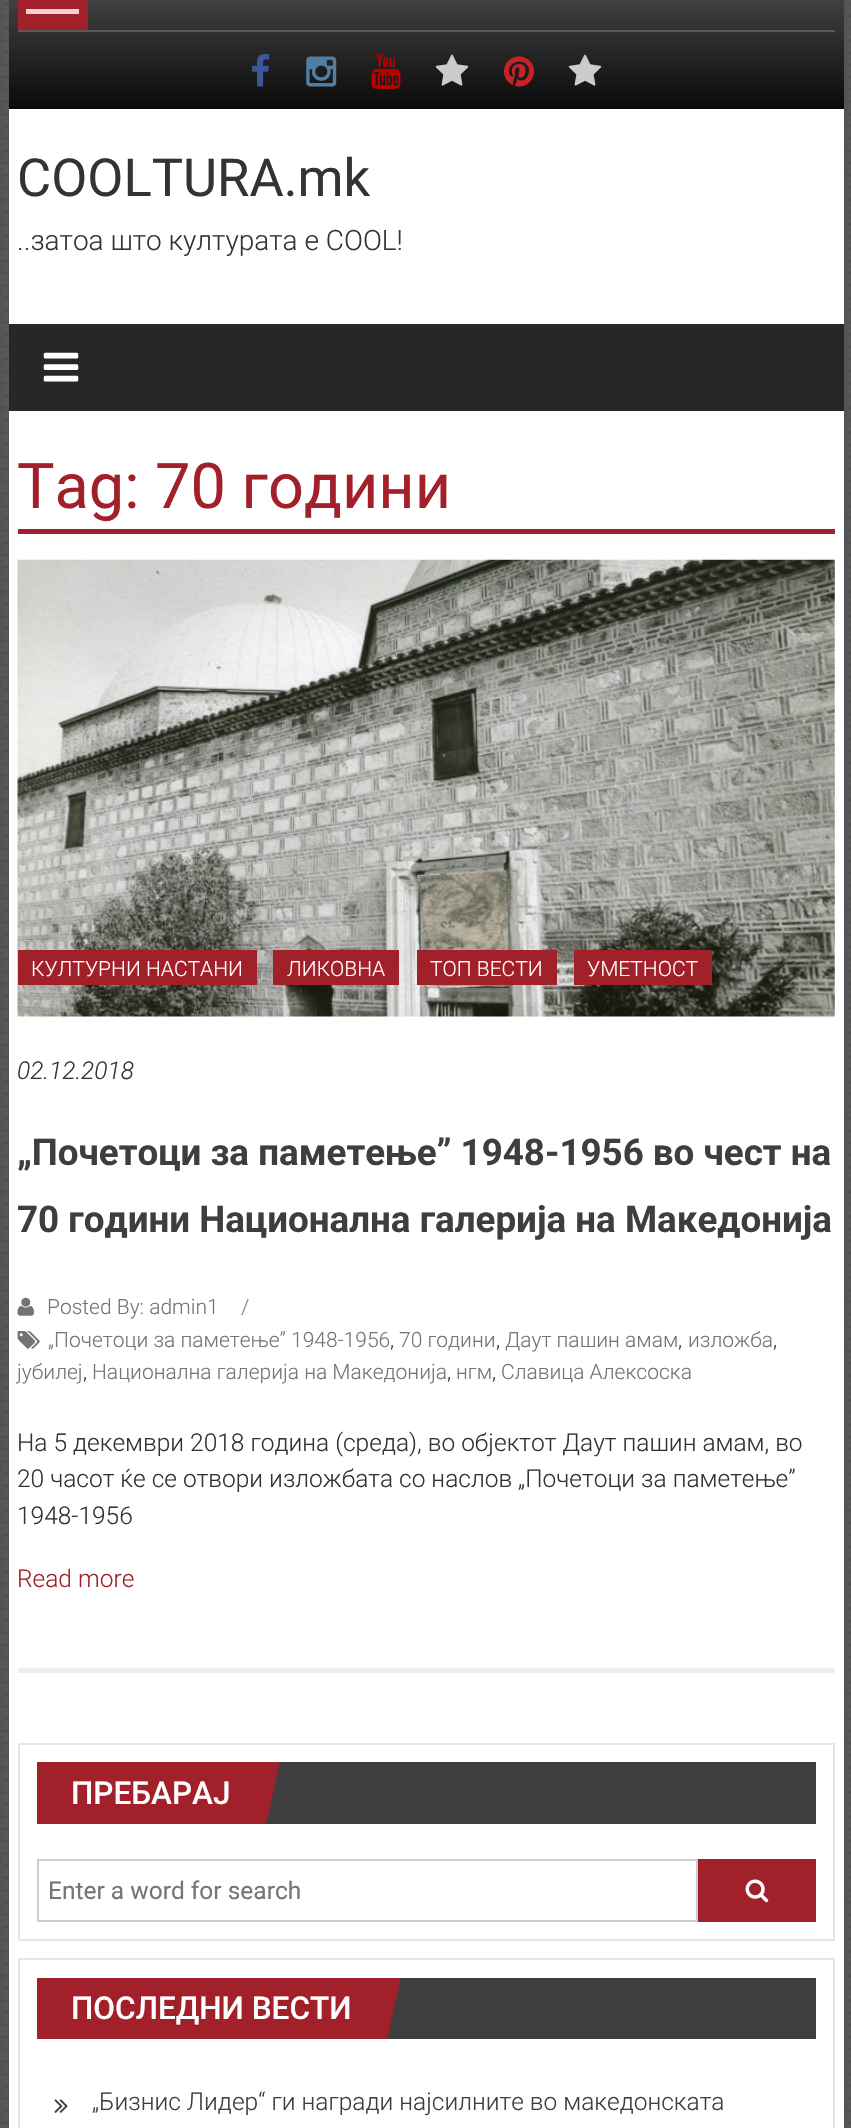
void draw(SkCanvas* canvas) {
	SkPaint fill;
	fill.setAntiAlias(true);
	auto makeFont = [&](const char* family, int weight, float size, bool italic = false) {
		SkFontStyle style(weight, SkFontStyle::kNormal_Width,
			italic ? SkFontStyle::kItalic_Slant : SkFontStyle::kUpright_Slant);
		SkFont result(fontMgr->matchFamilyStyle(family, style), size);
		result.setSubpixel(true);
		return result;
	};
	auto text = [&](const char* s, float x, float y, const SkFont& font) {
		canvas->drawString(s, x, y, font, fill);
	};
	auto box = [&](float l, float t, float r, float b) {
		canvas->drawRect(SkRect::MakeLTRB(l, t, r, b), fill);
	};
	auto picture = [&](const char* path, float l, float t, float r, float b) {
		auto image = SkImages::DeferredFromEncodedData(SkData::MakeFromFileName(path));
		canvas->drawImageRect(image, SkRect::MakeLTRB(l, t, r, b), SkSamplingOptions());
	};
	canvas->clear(0xFFFFFFFF);
	picture("image0.png", 0, 0, 851, 2128);
	fill.setColor(0xFFFFFFFF);
	box(9, 109, 844, 2128);
	{
		const SkColor colors[] = {0xFF565656, 0xFF0A0A0A};
		const float stops[] = {0, 1};
		const SkPoint ends[] = {{426, -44}, {426, 109}};
		fill.setShader(SkGradientShader::MakeLinear(ends, colors, stops, 2, SkTileMode::kClamp));
		fill.setAlpha(255);
	}
	box(9, 0, 844, 109);
	fill.setShader(nullptr);
	fill.setColor(0xFFA22029);
	box(18, 0, 88, 30);
	fill.setColor(0xFFECD2D4);
	box(26, 9, 79, 14);
	fill.setColor(0xFF5A5A5A);
	box(18, 30, 835, 32);
	picture("image1.png", 252, 54, 269, 87);
	picture("image2.png", 306, 56, 337, 87);
	picture("image3.png", 371, 54, 401, 89);
	picture("image4.png", 435, 54, 469, 86);
	picture("image5.png", 504, 56, 534, 87);
	picture("image4.png", 568, 54, 602, 86);
	fill.setColor(0xFF272727);
	box(9, 324, 844, 411);
	picture("image6.png", 43, 352, 79, 382);
	fill.setColor(0xFFA22029);
	box(18, 529, 835, 534);
	fill.setColor(0xFFEEEEEE);
	box(18, 1668, 835, 1673);
	picture("image7.png", 17, 559, 835, 1017);
	fill.setColor(0xFFA22029);
	box(18, 950, 257, 985);
	box(273, 950, 399, 985);
	box(417, 950, 557, 985);
	box(574, 950, 712, 985);
	picture("image8.png", 17, 1297, 34, 1316);
	picture("image9.png", 17, 1331, 40, 1349);
	fill.setStyle(SkPaint::kStroke_Style);
	fill.setStrokeWidth(2);
	fill.setColor(0xFFE6E6E6);
	canvas->drawRect(SkRect::MakeLTRB(19, 1744, 834, 1940), fill);
	fill.setStyle(SkPaint::kFill_Style);
	fill.setColor(0xFF3E3E3E);
	box(266, 1762, 816, 1824);
	fill.setColor(0xFFA22029);
	box(37, 1762, 266, 1824);
	canvas->save();
	canvas->clipRect(SkRect::MakeLTRB(37, 1762, 816, 1824));
	canvas->drawPath(SkPathBuilder().moveTo(280, 1761).lineTo(267, 1821).lineTo(207, 1807).lineTo(221, 1747).close().detach(), fill);
	canvas->restore();
	fill.setStyle(SkPaint::kStroke_Style);
	fill.setColor(0xFFCCCCCC);
	canvas->drawRect(SkRect::MakeLTRB(38, 1860, 697, 1921), fill);
	fill.setStyle(SkPaint::kFill_Style);
	fill.setColor(0xFFA22029);
	box(698, 1859, 816, 1922);
	picture("image10.png", 745, 1879, 769, 1903);
	fill.setStyle(SkPaint::kStroke_Style);
	fill.setColor(0xFFE6E6E6);
	canvas->drawRect(SkRect::MakeLTRB(19, 1959, 834, 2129), fill);
	fill.setStyle(SkPaint::kFill_Style);
	fill.setColor(0xFF3E3E3E);
	box(387, 1978, 816, 2039);
	fill.setColor(0xFFA22029);
	box(37, 1978, 387, 2039);
	canvas->save();
	canvas->clipRect(SkRect::MakeLTRB(37, 1978, 816, 2039));
	canvas->drawPath(SkPathBuilder().moveTo(401, 1976).lineTo(388, 2036).lineTo(328, 2022).lineTo(342, 1962).close().detach(), fill);
	canvas->restore();
	picture("image11.png", 54, 2099, 68, 2113);
	auto font1 = makeFont("Roboto", 400, 52.5f);
	fill.setColor(0xFF333333);
	text("COOLTURA.mk", 17, 196, font1);
	auto font2 = makeFont("Roboto", 300, 28);
	text("..затоа што културата е COOL!", 17, 250, font2);
	auto font3 = makeFont("Roboto", 400, 63);
	fill.setColor(0xFFA22029);
	text("Tag: 70 години", 17, 508, font3);
	auto font4 = makeFont("Roboto", 300, 21);
	fill.setColor(0xFFFFFFFF);
	text("КУЛТУРНИ НАСТАНИ", 31, 976, font4);
	text("ЛИКОВНА", 287, 976, font4);
	text("ТОП ВЕСТИ", 430, 976, font4);
	text("УМЕТНОСТ", 587, 976, font4);
	auto font5 = makeFont("Roboto", 300, 24.5f, true);
	fill.setColor(0xFF333333);
	text("02.12.2018", 17, 1079, font5);
	auto font6 = makeFont("Roboto", 700, 36.75f);
	fill.setColor(0xFF3E3E3E);
	text("„Почетоци за паметење” 1948-1956 во чест на", 17, 1165, font6);
	text("70 години Национална галерија на Македонија", 17, 1232, font6);
	fill.setColor(0xFF757575);
	text("Posted By: admin1", 47, 1314, font4);
	fill.setColor(0xFF808080);
	text("/", 241, 1314, font4);
	fill.setColor(0xFF757575);
	text("„Почетоци за паметење” 1948-1956", 48, 1347, font4);
	fill.setColor(0xFF333333);
	text(",", 390, 1347, font4);
	fill.setColor(0xFF757575);
	text("70 години", 399, 1347, font4);
	fill.setColor(0xFF333333);
	text(",", 496, 1347, font4);
	fill.setColor(0xFF757575);
	text("Даут пашин амам", 505, 1347, font4);
	fill.setColor(0xFF333333);
	text(",", 678, 1347, font4);
	fill.setColor(0xFF757575);
	text("изложба", 688, 1347, font4);
	fill.setColor(0xFF333333);
	text(",", 773, 1347, font4);
	fill.setColor(0xFF757575);
	text("јубилеј", 17, 1379, font4);
	text("Национална галерија на Македонија", 92, 1379, font4);
	text("нгм", 456, 1379, font4);
	text("Славица Алексоска", 501, 1379, font4);
	fill.setColor(0xFF333333);
	text(",", 83, 1379, font4);
	text(",", 447, 1379, font4);
	text(",", 492, 1379, font4);
	auto font7 = makeFont("Roboto", 300, 24.5f);
	text("На 5 декември 2018 година (среда), во објектот Даут пашин амам, во", 17, 1451, font7);
	text("20 часот ќе се отвори изложбата со наслов „Почетоци за паметење”", 17, 1487, font7);
	text("1948-1956", 17, 1524, font7);
	fill.setColor(0xFFA22029);
	text("Read more", 17, 1587, font7);
	auto font8 = makeFont("Roboto", 500, 31.5f);
	fill.setColor(0xFFFFFFFF);
	text("ПРЕБАРАЈ", 71, 1804, font8);
	auto font9 = makeFont("Roboto", 400, 24.5f);
	fill.setColor(0xFF757575);
	text("Enter a word for search", 48, 1899, font9);
	fill.setColor(0xFFFFFFFF);
	text("ПОСЛЕДНИ ВЕСТИ", 71, 2019, font8);
	fill.setColor(0xFF3E3E3E);
	text("„Бизнис Лидер“ ги награди најсилните во македонската", 92, 2110, font7);
}
